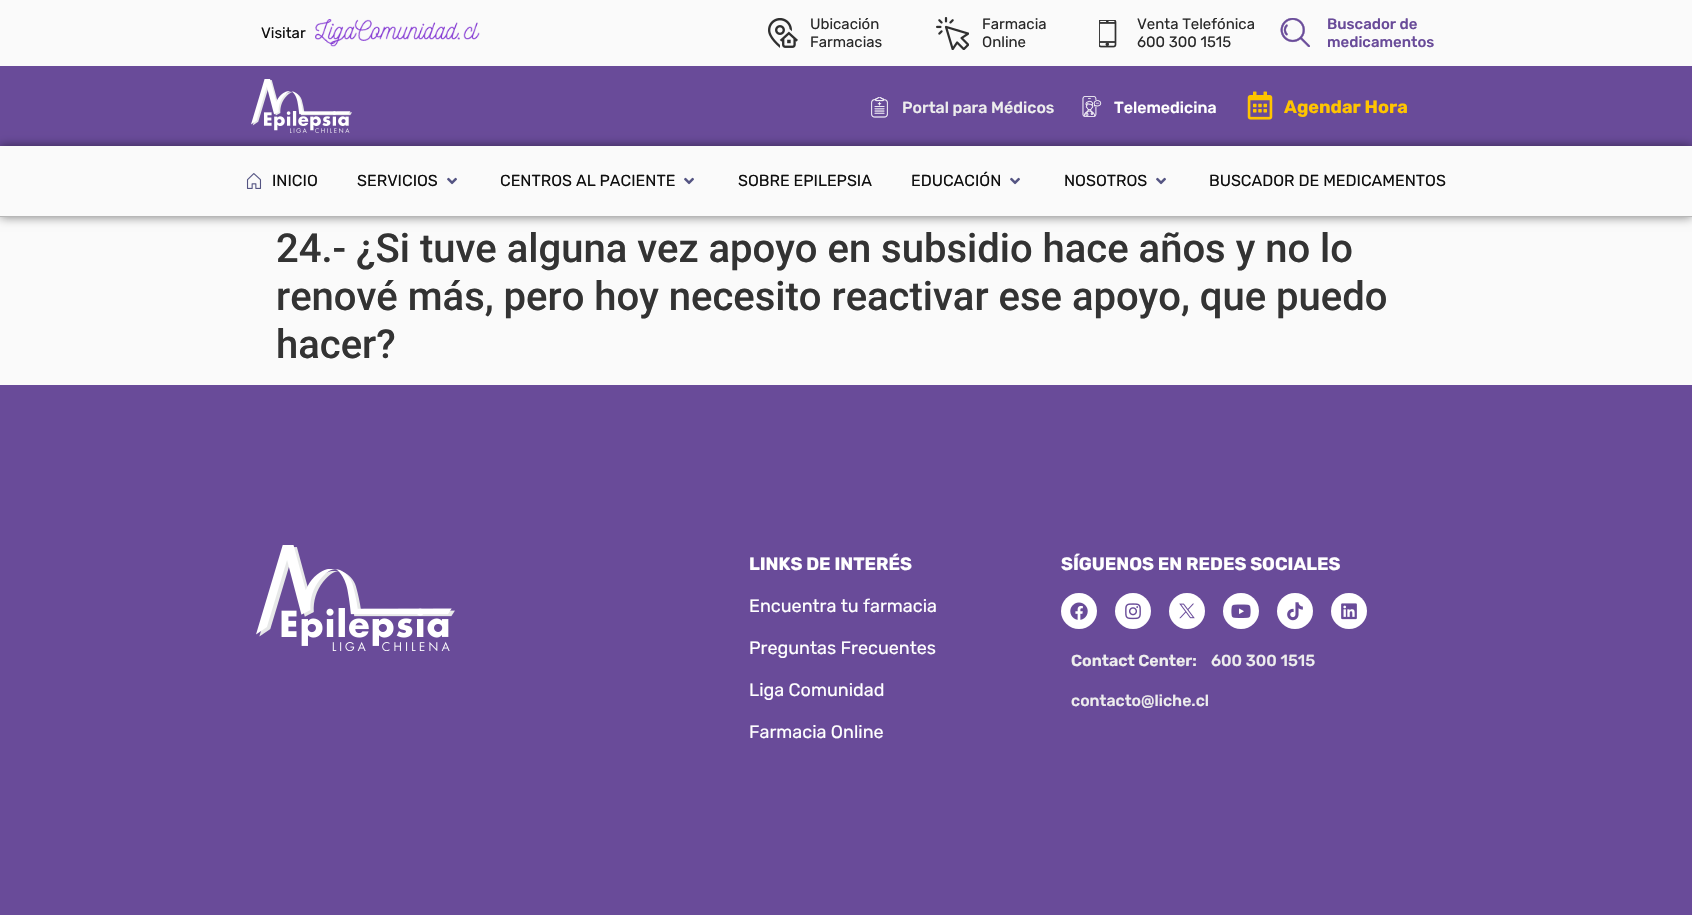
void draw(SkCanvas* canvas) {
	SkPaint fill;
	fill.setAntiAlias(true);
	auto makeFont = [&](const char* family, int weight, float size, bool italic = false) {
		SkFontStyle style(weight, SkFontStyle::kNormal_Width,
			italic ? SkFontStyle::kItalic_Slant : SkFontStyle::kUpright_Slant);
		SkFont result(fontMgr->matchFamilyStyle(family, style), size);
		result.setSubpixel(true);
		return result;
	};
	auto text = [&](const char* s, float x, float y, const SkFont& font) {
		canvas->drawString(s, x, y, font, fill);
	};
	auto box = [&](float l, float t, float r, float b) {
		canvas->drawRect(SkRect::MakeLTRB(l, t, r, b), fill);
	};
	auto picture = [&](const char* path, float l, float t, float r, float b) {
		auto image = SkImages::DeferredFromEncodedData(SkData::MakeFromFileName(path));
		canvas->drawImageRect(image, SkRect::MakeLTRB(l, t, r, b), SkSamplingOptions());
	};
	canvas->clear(0xFFFAFAFA);
	picture("image0.png", 315, 19, 480, 47);
	picture("image1.png", 768, 18, 798, 48);
	picture("image2.png", 936, 17, 969, 50);
	picture("image3.png", 1099, 20, 1117, 48);
	picture("image4.png", 1280, 18, 1310, 47);
	fill.setColor(0xFF694B99);
	box(0, 66, 1692, 146);
	picture("image5.png", 251, 79, 352, 133);
	picture("image6.png", 871, 97, 888, 118);
	picture("image7.png", 1082, 96, 1102, 117);
	picture("image8.png", 1247, 91, 1273, 120);
	canvas->save();
	canvas->clipPath(SkPathBuilder(SkPathFillType::kEvenOdd).moveTo(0, 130).lineTo(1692, 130).lineTo(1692, 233).lineTo(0, 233).close().moveTo(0, 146).lineTo(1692, 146).lineTo(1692, 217).lineTo(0, 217).close().detach(), true);
	fill.setColor(0x80000000);
	fill.setMaskFilter(SkMaskFilter::MakeBlur(kNormal_SkBlurStyle, 5));
	canvas->drawRect(SkRect::MakeLTRB(0, 146, 1692, 217), fill);
	fill.setMaskFilter(nullptr);
	canvas->restore();
	fill.setColor(0xFFB7B7B7);
	box(0, 216, 1692, 217);
	picture("image9.png", 246, 173, 262, 189);
	picture("image10.png", 447, 177, 457, 185);
	picture("image10.png", 684, 177, 694, 185);
	picture("image10.png", 1010, 177, 1020, 185);
	picture("image10.png", 1156, 177, 1166, 185);
	fill.setColor(0xFF694B99);
	box(0, 385, 1692, 915);
	picture("image11.png", 256, 545, 455, 651);
	fill.setColor(0xFFFFFFFF);
	canvas->drawCircle(1079, 611, 18, fill);
	picture("image12.png", 1070, 602, 1088, 620);
	canvas->drawCircle(1133, 611, 18, fill);
	picture("image13.png", 1125, 603, 1141, 620);
	canvas->drawCircle(1187, 611, 18, fill);
	picture("image14.png", 1179, 603, 1195, 619);
	canvas->drawCircle(1241, 611, 18, fill);
	picture("image15.png", 1231, 604, 1251, 618);
	canvas->drawCircle(1295, 611, 18, fill);
	picture("image16.png", 1287, 602, 1303, 621);
	canvas->drawCircle(1349, 611, 18, fill);
	picture("image17.png", 1341, 603, 1357, 620);
	auto font1 = makeFont("Rubik", 400, 15);
	fill.setColor(0xFF0F0F0F);
	text("Visitar", 261, 38, font1);
	fill.setColor(0xFF2A2A2A);
	text("Ubicación", 810, 29, font1);
	text("Farmacias", 810, 47, font1);
	text("Farmacia", 982, 29, font1);
	text("Online", 982, 47, font1);
	text("Venta Telefónica", 1137, 29, font1);
	text("600 300 1515", 1137, 47, font1);
	auto font2 = makeFont("Rubik", 500, 15);
	fill.setColor(0xFF694B99);
	text("Buscador de", 1327, 29, font2);
	text("medicamentos", 1327, 47, font2);
	auto font3 = makeFont("Rubik", 500, 16);
	fill.setColor(0xFFEDEDED);
	text("Portal para Médicos", 902, 113, font3);
	fill.setColor(0xFFFFFFFF);
	text("Telemedicina", 1114, 113, font3);
	auto font4 = makeFont("Rubik", 700, 18);
	fill.setColor(0xFFFFC400);
	text("Agendar Hora", 1284, 113, font4);
	auto font5 = makeFont("Rubik", 400, 16);
	fill.setColor(0xFF0F0F0F);
	text("INICIO", 272, 186, font5);
	text("SERVICIOS", 357, 186, font5);
	text("CENTROS AL PACIENTE", 500, 186, font5);
	text("SOBRE EPILEPSIA", 738, 186, font5);
	text("EDUCACIÓN", 911, 186, font5);
	text("NOSOTROS", 1064, 186, font5);
	text("BUSCADOR DE MEDICAMENTOS", 1209, 186, font5);
	auto font6 = makeFont("Roboto", 500, 40);
	fill.setColor(0xFF333333);
	text("24.- ¿Si tuve alguna vez apoyo en subsidio hace años y no lo", 276, 262, font6);
	text("renové más, pero hoy necesito reactivar ese apoyo, que puedo", 276, 310, font6);
	text("hacer?", 276, 358, font6);
	fill.setColor(0xFFFFFFFF);
	text("LINKS DE INTERÉS", 749, 570, font4);
	auto font7 = makeFont("Rubik", 400, 18);
	text("Encuentra tu farmacia", 749, 612, font7);
	text("Preguntas Frecuentes", 749, 654, font7);
	text("Liga Comunidad", 749, 696, font7);
	text("Farmacia Online", 749, 738, font7);
	text("SÍGUENOS EN REDES SOCIALES", 1061, 570, font4);
	auto font8 = makeFont("Rubik", 600, 16);
	fill.setColor(0xFFEDEDED);
	text("Contact Center:", 1071, 666, font8);
	text("600 300 1515", 1211, 666, font3);
	text("contacto@liche.cl", 1071, 706, font3);
}
